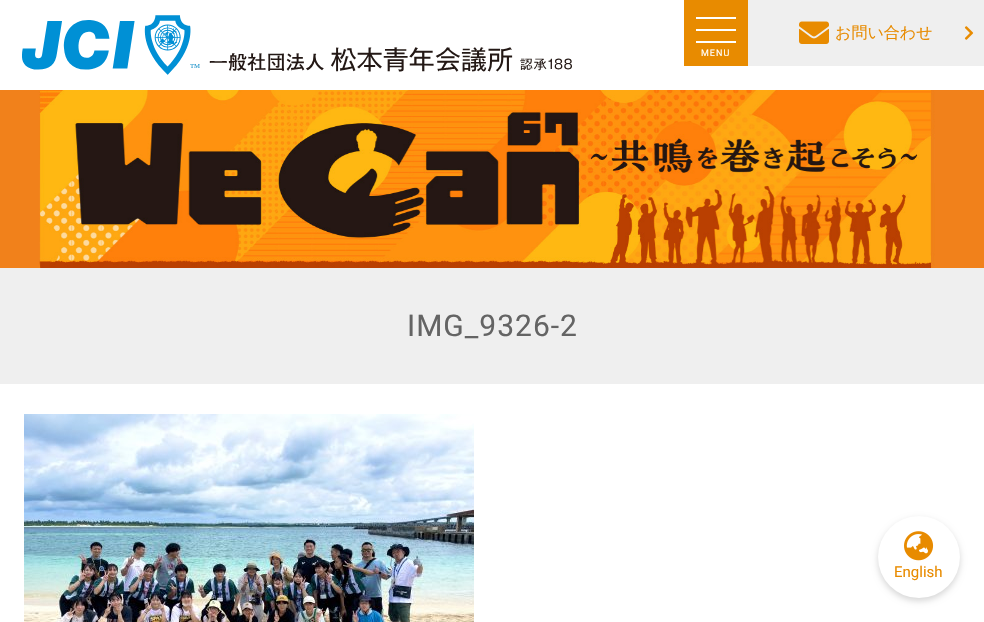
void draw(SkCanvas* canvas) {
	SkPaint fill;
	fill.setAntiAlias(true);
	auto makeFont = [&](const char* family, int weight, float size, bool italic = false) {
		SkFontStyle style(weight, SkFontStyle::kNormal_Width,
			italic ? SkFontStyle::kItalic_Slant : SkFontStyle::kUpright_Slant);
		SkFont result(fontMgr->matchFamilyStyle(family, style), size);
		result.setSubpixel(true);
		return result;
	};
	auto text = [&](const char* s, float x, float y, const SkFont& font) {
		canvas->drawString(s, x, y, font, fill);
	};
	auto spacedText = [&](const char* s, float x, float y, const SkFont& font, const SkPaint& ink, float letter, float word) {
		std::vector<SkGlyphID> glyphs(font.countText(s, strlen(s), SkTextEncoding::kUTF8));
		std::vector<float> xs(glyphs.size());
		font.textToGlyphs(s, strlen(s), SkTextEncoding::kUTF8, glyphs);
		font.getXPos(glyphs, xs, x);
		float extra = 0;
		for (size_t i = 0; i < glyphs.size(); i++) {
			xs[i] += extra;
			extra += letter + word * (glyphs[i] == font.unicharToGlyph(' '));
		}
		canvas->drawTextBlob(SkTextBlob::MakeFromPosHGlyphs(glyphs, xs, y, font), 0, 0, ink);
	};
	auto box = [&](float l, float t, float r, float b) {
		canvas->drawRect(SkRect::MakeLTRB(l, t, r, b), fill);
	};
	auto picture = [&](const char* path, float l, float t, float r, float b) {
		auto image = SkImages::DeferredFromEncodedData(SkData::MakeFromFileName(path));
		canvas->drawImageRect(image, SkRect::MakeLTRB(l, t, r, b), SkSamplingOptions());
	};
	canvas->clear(0xFFFFFFFF);
	picture("image0.png", 22, 15, 572, 75);
	fill.setColor(0xFFEFEFEF);
	box(748, 0, 984, 66);
	picture("image1.png", 799, 21, 829, 44);
	picture("image2.png", 964, 26, 974, 40);
	fill.setColor(0xFFE88B00);
	box(684, 0, 748, 66);
	fill.setColor(0xFFFFFFFF);
	box(696, 17, 736, 19);
	box(696, 29, 736, 31);
	box(696, 41, 736, 43);
	picture("image3.png", 0, 90, 984, 268);
	fill.setColor(0xFFEFEFEF);
	box(0, 268, 984, 384);
	picture("image4.png", 24, 414, 474, 622);
	fill.setColor(0x29000000);
	fill.setMaskFilter(SkMaskFilter::MakeBlur(kNormal_SkBlurStyle, 3));
	canvas->drawRoundRect(SkRect::MakeLTRB(878, 519, 960, 601), 41, 41, fill);
	fill.setMaskFilter(nullptr);
	fill.setColor(0xFFFFFFFF);
	canvas->drawCircle(919, 557, 41, fill);
	picture("image5.png", 904, 531, 934, 561);
	auto font1 = makeFont("WenQuanYi Zen Hei", 500, 16);
	fill.setColor(0xFFE88B00);
	text("お問い合わせ", 835, 38, font1);
	auto font2 = makeFont("Roboto", 400, 9);
	fill.setColor(0xFFFFFFFF);
	spacedText("MENU", 701, 56, font2, fill, 1, 0);
	auto font3 = makeFont("Roboto", 400, 30);
	fill.setColor(0xFF646464);
	spacedText("IMG_9326-2", 407, 336, font3, fill, 1, 0);
	auto font4 = makeFont("Roboto", 400, 15);
	fill.setColor(0xFFE88B00);
	text("English", 894, 577, font4);
}
